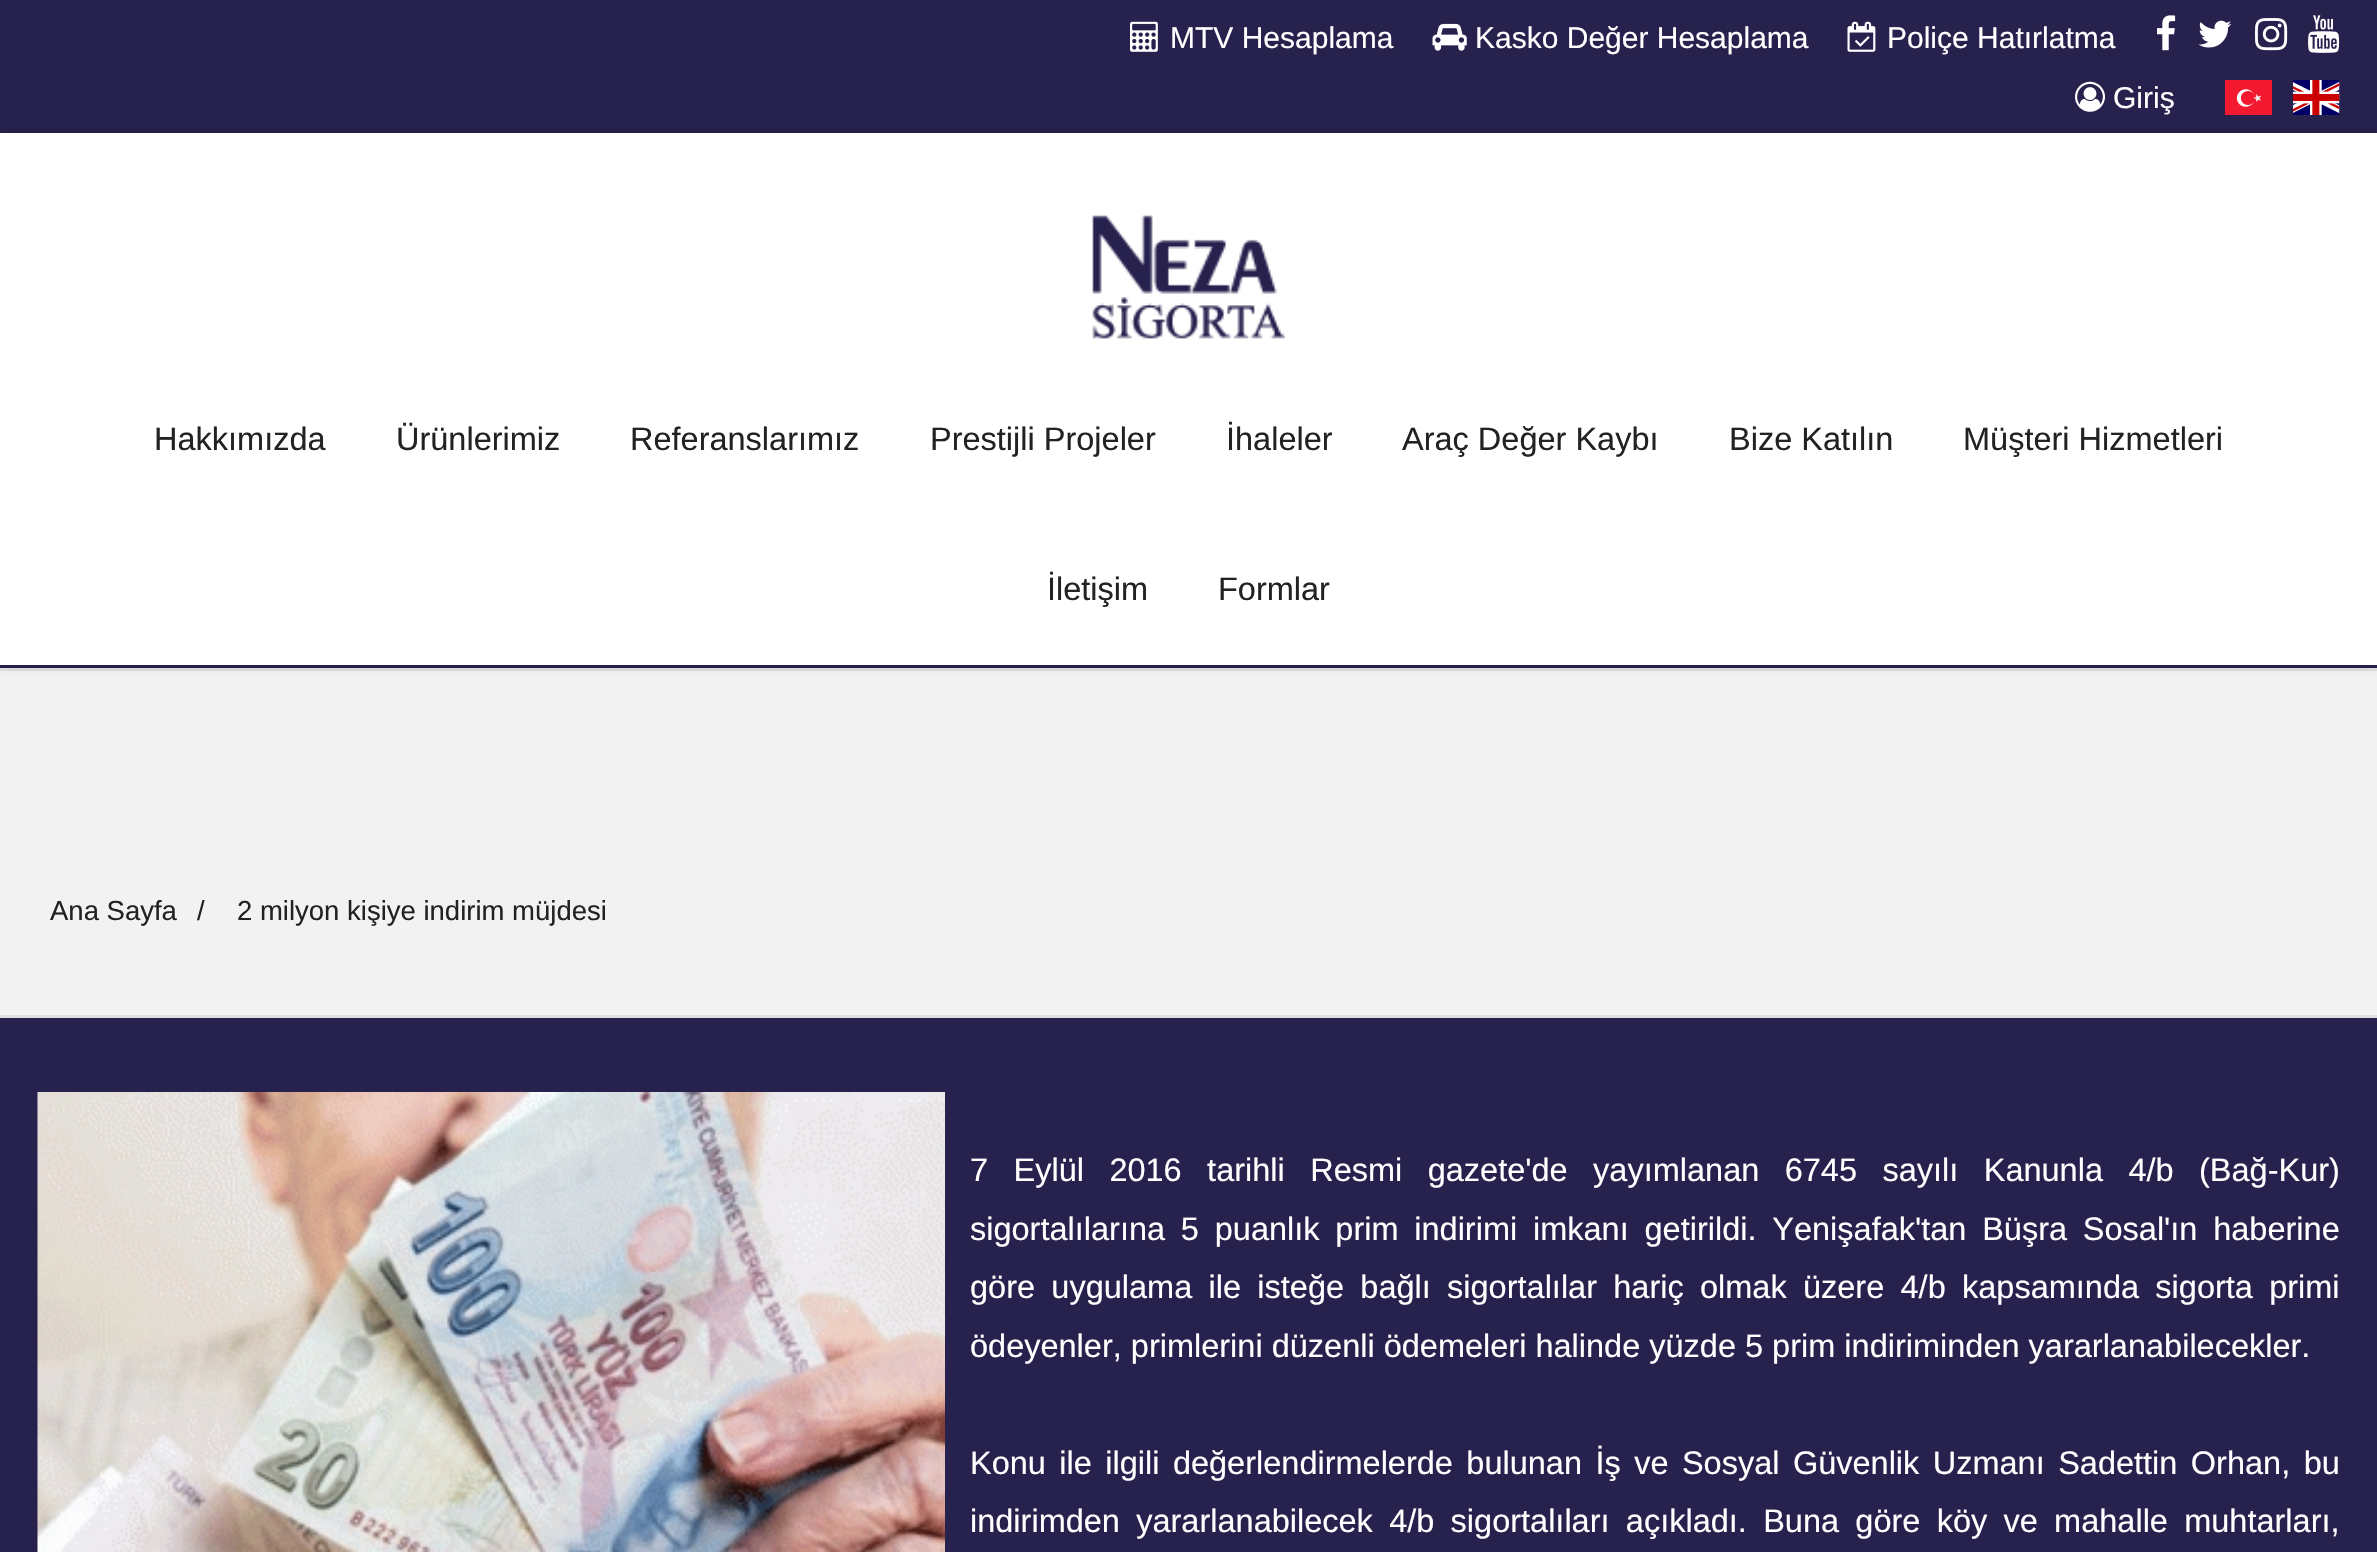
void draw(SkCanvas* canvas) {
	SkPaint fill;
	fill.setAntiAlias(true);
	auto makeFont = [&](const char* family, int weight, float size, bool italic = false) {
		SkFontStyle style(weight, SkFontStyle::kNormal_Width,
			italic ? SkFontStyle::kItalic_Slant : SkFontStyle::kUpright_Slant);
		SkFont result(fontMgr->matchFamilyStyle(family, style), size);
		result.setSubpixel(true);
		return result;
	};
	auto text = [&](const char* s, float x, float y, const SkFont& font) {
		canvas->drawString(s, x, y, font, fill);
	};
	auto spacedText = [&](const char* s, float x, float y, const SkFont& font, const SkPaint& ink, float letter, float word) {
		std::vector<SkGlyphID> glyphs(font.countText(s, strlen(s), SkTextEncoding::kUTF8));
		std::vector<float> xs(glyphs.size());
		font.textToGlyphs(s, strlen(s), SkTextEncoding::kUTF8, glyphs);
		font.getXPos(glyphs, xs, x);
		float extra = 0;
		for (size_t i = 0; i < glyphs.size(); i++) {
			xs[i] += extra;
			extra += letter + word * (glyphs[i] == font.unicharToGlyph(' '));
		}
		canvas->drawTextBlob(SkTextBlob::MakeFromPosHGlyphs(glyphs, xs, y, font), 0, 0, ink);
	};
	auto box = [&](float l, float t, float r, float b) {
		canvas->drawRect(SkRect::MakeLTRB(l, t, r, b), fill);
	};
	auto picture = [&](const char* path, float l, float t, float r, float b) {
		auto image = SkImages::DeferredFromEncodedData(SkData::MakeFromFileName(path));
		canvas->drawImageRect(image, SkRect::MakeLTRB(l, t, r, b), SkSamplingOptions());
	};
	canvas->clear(0xFF27214E);
	picture("image0.png", 1130, 21, 1158, 52);
	picture("image1.png", 1432, 23, 1467, 51);
	picture("image2.png", 1847, 21, 1876, 52);
	picture("image3.png", 2157, 15, 2176, 51);
	picture("image4.png", 2198, 20, 2232, 48);
	picture("image5.png", 2255, 18, 2288, 51);
	picture("image6.png", 2308, 15, 2340, 53);
	picture("image7.png", 2075, 81, 2105, 112);
	picture("image8.png", 2225, 80, 2272, 115);
	picture("image9.png", 2293, 80, 2340, 115);
	fill.setColor(0xFFF2F2F2);
	box(0, 671, 2377, 1015);
	fill.setColor(0xFFE1E1E1);
	box(0, 668, 2377, 671);
	fill.setColor(0x26000000);
	fill.setMaskFilter(SkMaskFilter::MakeBlur(kNormal_SkBlurStyle, 6));
	canvas->drawRect(SkRect::MakeLTRB(0, 133, 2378, 665), fill);
	fill.setMaskFilter(nullptr);
	fill.setColor(0xFFFFFFFF);
	box(0, 133, 2377, 665);
	picture("image10.png", 1092, 215, 1286, 339);
	fill.setColor(0xFFE1E1E1);
	box(0, 1015, 2377, 1018);
	picture("image11.png", 37, 1092, 945, 1552);
	auto font1 = makeFont("Arimo", 400, 30);
	fill.setColor(0xFFFFFFFF);
	text("MTV Hesaplama", 1170, 48, font1);
	text("Kasko Değer Hesaplama", 1475, 48, font1);
	text("Poliçe Hatırlatma", 1887, 48, font1);
	text("Giriş", 2113, 108, font1);
	auto font2 = makeFont("Arimo", 400, 32.5f);
	fill.setColor(0xFF222222);
	text("Hakkımızda", 154, 450, font2);
	text("Ürünlerimiz", 396, 450, font2);
	text("Referanslarımız", 630, 450, font2);
	text("Prestijli Projeler", 930, 450, font2);
	text("İhaleler", 1226, 450, font2);
	text("Araç Değer Kaybı", 1402, 450, font2);
	text("Bize Katılın", 1729, 450, font2);
	text("Müşteri Hizmetleri", 1963, 450, font2);
	text("İletişim", 1047, 600, font2);
	text("Formlar", 1218, 600, font2);
	auto font3 = makeFont("Arimo", 400, 27.5f);
	text("Ana Sayfa", 50, 920, font3);
	text("/", 197, 920, font3);
	text("2 milyon kişiye indirim müjdesi", 237, 920, font3);
	fill.setColor(0xFFFFFFFF);
	spacedText("7 Eylül 2016 tarihli Resmi gazete'de yayımlanan 6745 sayılı Kanunla 4/b (Bağ-Kur)", 970, 1181, font2, fill, 0, 16.4f);
	spacedText("sigortalılarına 5 puanlık prim indirimi imkanı getirildi. Yenişafak'tan Büşra Sosal'ın haberine", 970, 1240, font2, fill, 0, 6.75f);
	spacedText("göre uygulama ile isteğe bağlı sigortalılar hariç olmak üzere 4/b kapsamında sigorta primi", 970, 1298, font2, fill, 0, 7.25f);
	text("ödeyenler, primlerini düzenli ödemeleri halinde yüzde 5 prim indiriminden yararlanabilecekler.", 970, 1357, font2);
	spacedText("Konu ile ilgili değerlendirmelerde bulunan İş ve Sosyal Güvenlik Uzmanı Sadettin Orhan, bu", 970, 1474, font2, fill, 0, 4.4f);
	spacedText("indirimden yararlanabilecek 4/b sigortalıları açıkladı. Buna göre köy ve mahalle muhtarları,", 970, 1532, font2, fill, 0, 7.25f);
}
